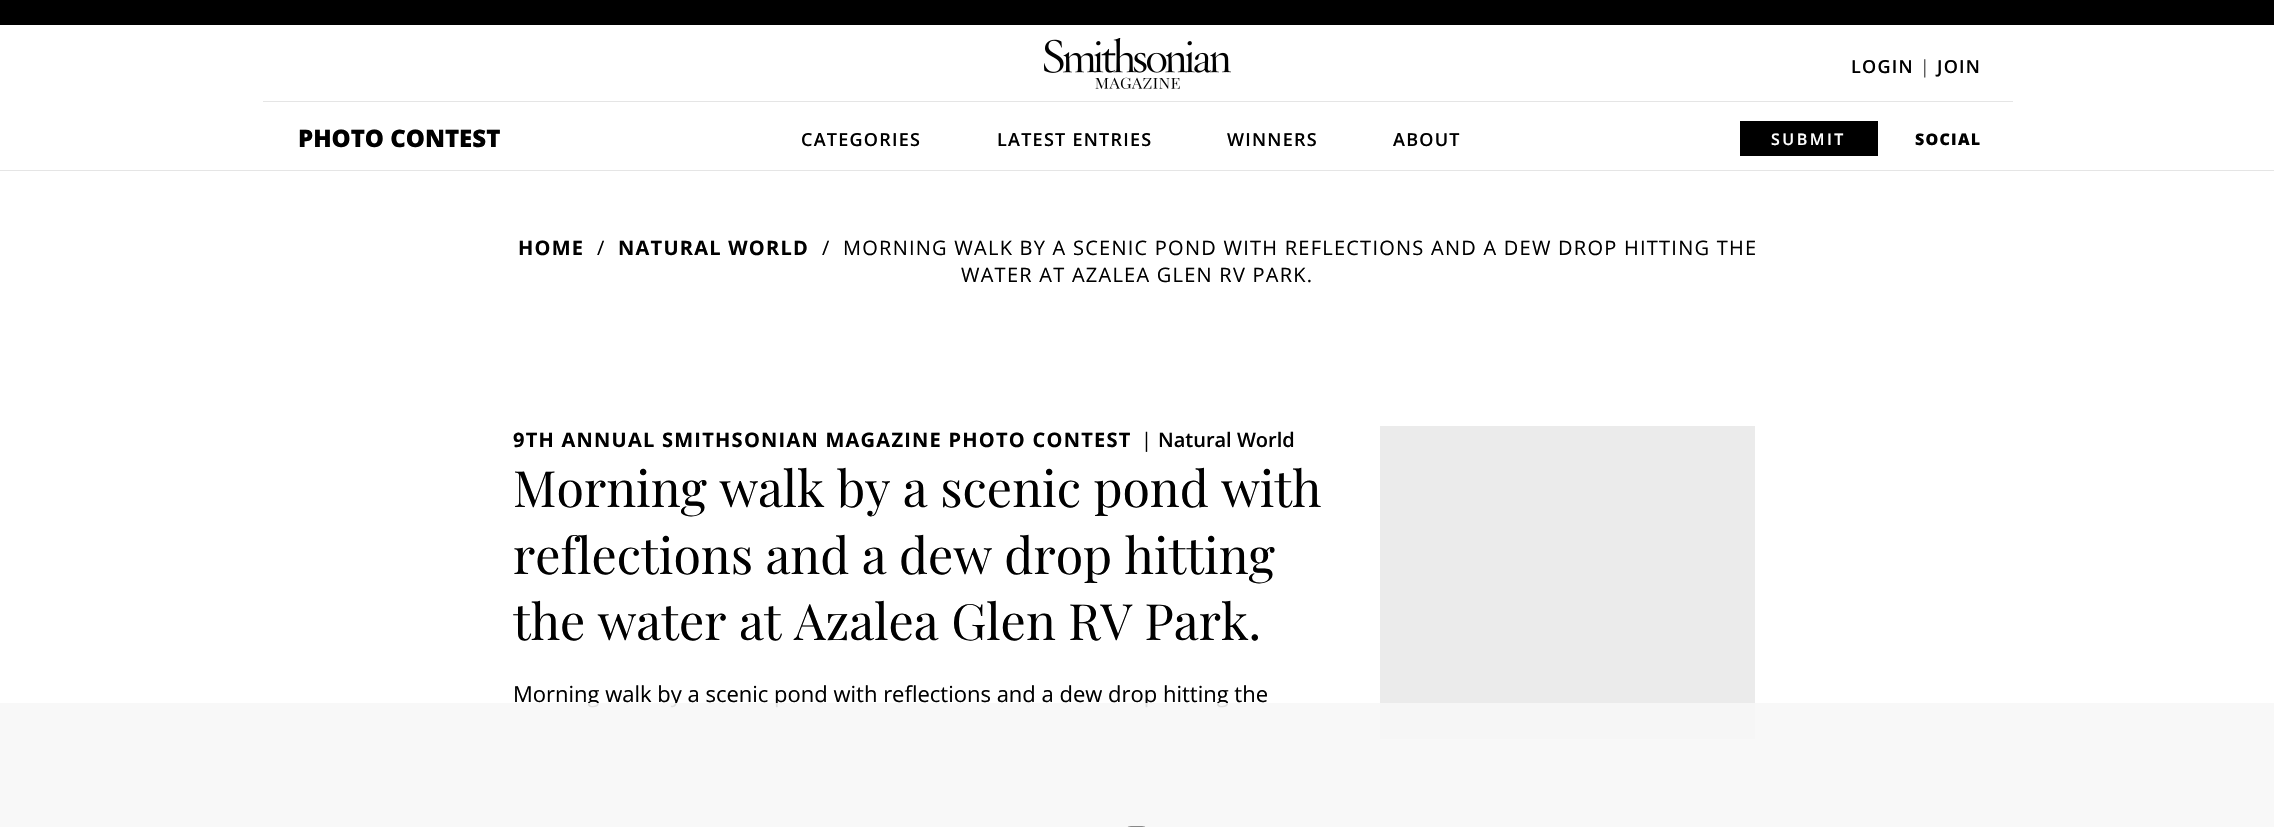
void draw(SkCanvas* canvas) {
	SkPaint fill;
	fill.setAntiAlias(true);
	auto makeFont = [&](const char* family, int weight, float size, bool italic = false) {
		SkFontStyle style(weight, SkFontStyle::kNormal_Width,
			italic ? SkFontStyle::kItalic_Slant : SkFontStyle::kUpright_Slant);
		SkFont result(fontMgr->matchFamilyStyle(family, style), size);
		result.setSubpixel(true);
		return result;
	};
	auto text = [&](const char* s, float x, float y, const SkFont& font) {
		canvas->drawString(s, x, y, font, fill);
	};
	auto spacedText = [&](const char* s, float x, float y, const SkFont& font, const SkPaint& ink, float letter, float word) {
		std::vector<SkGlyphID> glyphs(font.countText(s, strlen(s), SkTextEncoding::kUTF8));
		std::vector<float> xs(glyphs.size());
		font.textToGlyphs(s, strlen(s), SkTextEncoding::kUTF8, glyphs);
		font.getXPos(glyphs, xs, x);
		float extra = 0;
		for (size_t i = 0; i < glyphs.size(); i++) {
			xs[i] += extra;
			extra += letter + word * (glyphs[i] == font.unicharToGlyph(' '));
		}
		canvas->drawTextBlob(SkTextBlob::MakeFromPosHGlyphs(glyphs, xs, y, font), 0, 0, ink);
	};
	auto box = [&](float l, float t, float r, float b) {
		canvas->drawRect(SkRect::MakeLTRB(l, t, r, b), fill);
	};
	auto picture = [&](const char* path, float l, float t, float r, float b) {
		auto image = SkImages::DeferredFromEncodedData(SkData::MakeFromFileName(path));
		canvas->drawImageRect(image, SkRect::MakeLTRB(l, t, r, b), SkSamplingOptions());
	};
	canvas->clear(0xFFFFFFFF);
	fill.setColor(0xFF000000);
	box(0, 0, 2274, 25);
	fill.setColor(0xFFE5E5E5);
	box(0, 170, 2274, 171);
	picture("image0.png", 1044, 38, 1231, 89);
	box(263, 101, 2013, 102);
	fill.setColor(0xFF000000);
	box(1740, 121, 1878, 156);
	fill.setColor(0xFFEBEBEB);
	box(1380, 426, 1755, 739);
	auto font1 = makeFont("Open Sans", 600, 18);
	fill.setColor(0xFF000000);
	spacedText("LOGIN", 1851, 73, font1, fill, 1.25f, 0);
	auto font2 = makeFont("Open Sans", 300, 18);
	spacedText("|", 1920, 73, font2, fill, 1.25f, 0);
	spacedText("JOIN", 1937, 73, font1, fill, 1.25f, 0);
	auto font3 = makeFont("Open Sans", 800, 24);
	text("PHOTO CONTEST", 298, 147, font3);
	spacedText("CATEGORIES", 801, 146, font1, fill, 1.25f, 0);
	spacedText("LATEST ENTRIES", 997, 146, font1, fill, 1.25f, 0);
	spacedText("WINNERS", 1227, 146, font1, fill, 1.25f, 0);
	spacedText("ABOUT", 1393, 146, font1, fill, 1.25f, 0);
	auto font4 = makeFont("Open Sans", 600, 16);
	fill.setColor(0xFFFFFFFF);
	spacedText("SUBMIT", 1771, 145, font4, fill, 2.5f, 0);
	auto font5 = makeFont("Open Sans", 800, 16);
	fill.setColor(0xFF000000);
	spacedText("SOCIAL", 1915, 145, font5, fill, 1.25f, 0);
	auto font6 = makeFont("Open Sans", 700, 20);
	spacedText("HOME", 518, 255, font6, fill, 1.25f, 0);
	auto font7 = makeFont("Open Sans", 400, 20);
	spacedText("/", 597, 255, font7, fill, 1.25f, 0);
	spacedText("NATURAL WORLD", 618, 255, font6, fill, 1.25f, 0);
	spacedText("/", 822, 255, font7, fill, 1.25f, 0);
	spacedText("MORNING WALK BY A SCENIC POND WITH REFLECTIONS AND A DEW DROP HITTING THE", 843, 255, font7, fill, 1.25f, 0);
	spacedText("WATER AT AZALEA GLEN RV PARK.", 961, 282, font7, fill, 1.25f, 0);
	spacedText("9TH ANNUAL SMITHSONIAN MAGAZINE PHOTO CONTEST", 513, 447, font6, fill, 1.25f, 0);
	spacedText("|", 1141, 447, font7, fill, 1.25f, 0);
	auto font8 = makeFont("Open Sans", 600, 20);
	text("Natural World", 1158, 447, font8);
	auto font9 = makeFont("Playfair Display", 400, 50);
	text("Morning walk by a scenic pond with", 513, 507, font9);
	text("reflections and a dew drop hitting", 513, 574, font9);
	text("the water at Azalea Glen RV Park.", 513, 640, font9);
	auto font10 = makeFont("Open Sans", 400, 22);
	text("Morning walk by a scenic pond with reflections and a dew drop hitting the", 513, 702, font10);
	fill.setColor(0xE6F7F7F7);
	box(0, 703, 2274, 827);
	fill.setStyle(SkPaint::kStroke_Style);
	fill.setStrokeWidth(1);
	fill.setColor(0xFF888888);
	canvas->drawRoundRect(SkRect::MakeLTRB(1123.5f, 826.5f, 1149.5f, 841.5f), 13, 13, fill);
}
